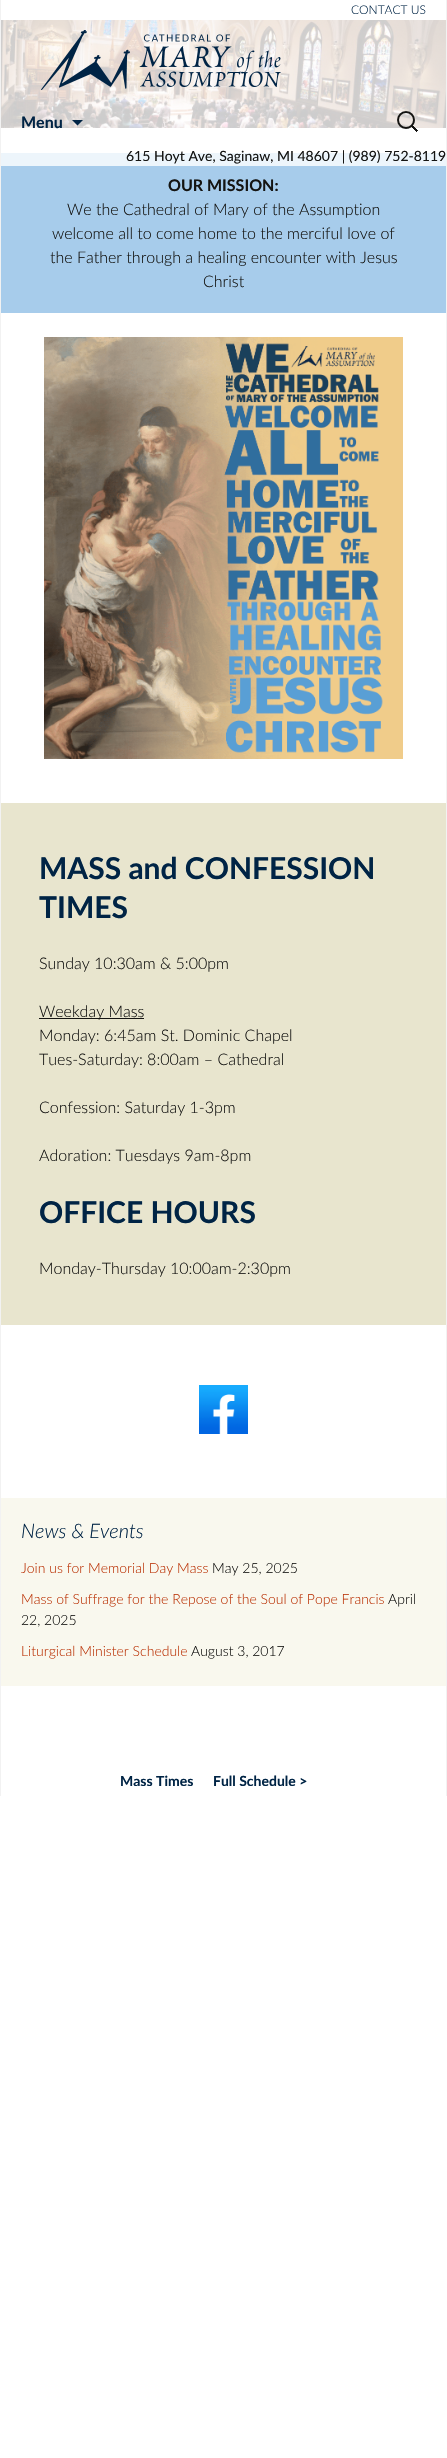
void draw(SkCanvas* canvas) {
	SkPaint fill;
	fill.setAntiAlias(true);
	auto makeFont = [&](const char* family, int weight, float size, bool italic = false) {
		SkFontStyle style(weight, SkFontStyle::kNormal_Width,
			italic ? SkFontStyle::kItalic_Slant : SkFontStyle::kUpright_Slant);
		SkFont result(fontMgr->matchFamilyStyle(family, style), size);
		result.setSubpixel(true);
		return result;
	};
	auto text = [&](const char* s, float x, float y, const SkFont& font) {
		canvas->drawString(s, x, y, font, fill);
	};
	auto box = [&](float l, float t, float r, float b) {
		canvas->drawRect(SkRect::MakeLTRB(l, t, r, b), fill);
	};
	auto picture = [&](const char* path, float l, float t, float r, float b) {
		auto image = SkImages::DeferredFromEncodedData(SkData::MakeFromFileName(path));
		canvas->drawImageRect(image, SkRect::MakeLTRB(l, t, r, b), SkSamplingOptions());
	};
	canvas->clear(0xFFFFFFFF);
	fill.setColor(0xFFF2F2F2);
	box(446, 0, 447, 1796);
	box(0, 0, 1, 1796);
	picture("image2.png", 1, 20, 446, 128);
	picture("image0.png", 41, 30, 281, 90);
	fill.setColor(0xFF002445);
	canvas->drawPath(SkPathBuilder().moveTo(72, 120).lineTo(77.5f, 125.5f).lineTo(83, 120).close().detach(), fill);
	picture("image1.png", 397, 111, 418, 132);
	fill.setColor(0xFFA7CCEB);
	box(1, 166, 446, 313);
	fill.setColor(0xFFEDF5FB);
	box(1, 153, 446, 166);
	picture("image3.png", 44, 337, 403, 759);
	fill.setColor(0xFFE8E5CE);
	box(1, 803, 446, 1325);
	fill.setColor(0xFF141412);
	box(39, 1018, 144, 1019);
	picture("image4.png", 199, 1385, 248, 1434);
	fill.setColor(0xFFF9F8EE);
	box(1, 1498, 446, 1686);
	auto font1 = makeFont("Lato", 300, 12);
	fill.setColor(0xFF002445);
	text("CONTACT US", 351, 14, font1);
	auto font2 = makeFont("Lato", 700, 16);
	text("Menu", 21, 128, font2);
	auto font3 = makeFont("Lato", 400, 14);
	fill.setColor(0xFF141412);
	text("615 Hoyt Ave, Saginaw, MI 48607 | (989) 752-8119", 126, 161, font3);
	text("OUR MISSION:", 168, 191, font2);
	auto font4 = makeFont("Lato", 300, 16);
	text("We the Cathedral of Mary of the Assumption", 67, 215, font4);
	text("welcome all to come home to the merciful love of", 52, 239, font4);
	text("the Father through a healing encounter with Jesus", 50, 263, font4);
	text("Christ", 203, 287, font4);
	auto font5 = makeFont("Lato", 700, 30);
	fill.setColor(0xFF002445);
	text("MASS and CONFESSION", 39, 879, font5);
	text("TIMES", 39, 918, font5);
	fill.setColor(0xFF141412);
	text("Sunday 10:30am & 5:00pm", 39, 969, font4);
	text("Weekday Mass", 39, 1017, font4);
	text("Monday: 6:45am St. Dominic Chapel", 39, 1041, font4);
	text("Tues-Saturday: 8:00am – Cathedral", 39, 1065, font4);
	text("Confession: Saturday 1-3pm", 39, 1113, font4);
	text("Adoration: Tuesdays 9am-8pm", 39, 1161, font4);
	fill.setColor(0xFF002445);
	text("OFFICE HOURS", 39, 1223, font5);
	fill.setColor(0xFF141412);
	text("Monday-Thursday 10:00am-2:30pm", 39, 1274, font4);
	auto font6 = makeFont("Lato", 300, 20, true);
	fill.setColor(0xFF002445);
	text("News & Events", 21, 1538, font6);
	auto font7 = makeFont("Lato", 300, 14);
	fill.setColor(0xFFBC360A);
	text("Join us for Memorial Day Mass", 21, 1573, font7);
	fill.setColor(0xFF141412);
	text("May 25, 2025", 212, 1573, font7);
	fill.setColor(0xFFBC360A);
	text("Mass of Suffrage for the Repose of the Soul of Pope Francis", 21, 1604, font7);
	fill.setColor(0xFF141412);
	text("April", 388, 1604, font7);
	text("22, 2025", 21, 1625, font7);
	fill.setColor(0xFFBC360A);
	text("Liturgical Minister Schedule", 21, 1656, font7);
	fill.setColor(0xFF141412);
	text("August 3, 2017", 191, 1656, font7);
	auto font8 = makeFont("Lato", 700, 14);
	fill.setColor(0xFF002445);
	text("Mass Times", 120, 1786, font8);
	text("Full Schedule >", 213, 1786, font8);
}
